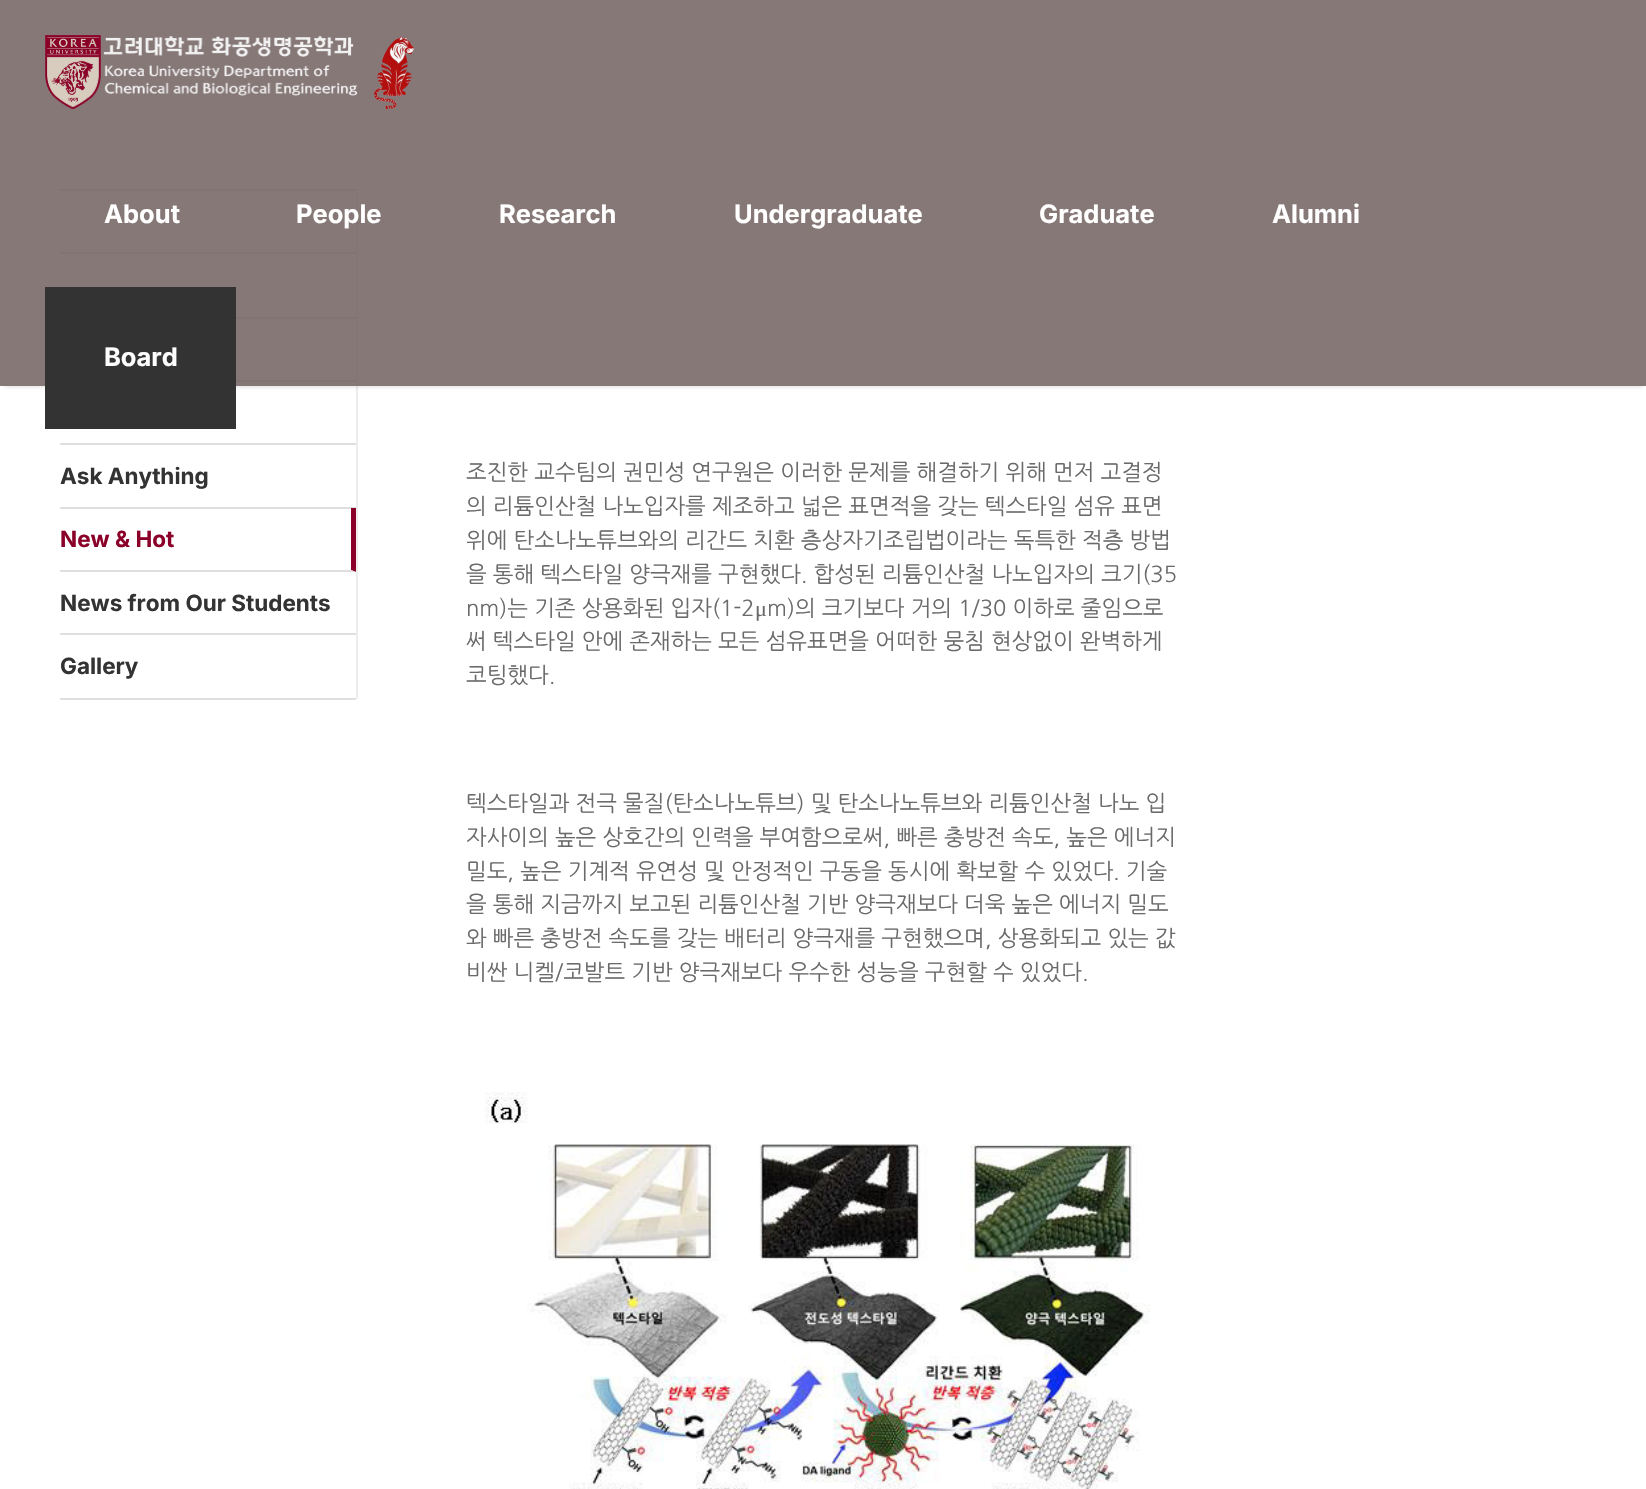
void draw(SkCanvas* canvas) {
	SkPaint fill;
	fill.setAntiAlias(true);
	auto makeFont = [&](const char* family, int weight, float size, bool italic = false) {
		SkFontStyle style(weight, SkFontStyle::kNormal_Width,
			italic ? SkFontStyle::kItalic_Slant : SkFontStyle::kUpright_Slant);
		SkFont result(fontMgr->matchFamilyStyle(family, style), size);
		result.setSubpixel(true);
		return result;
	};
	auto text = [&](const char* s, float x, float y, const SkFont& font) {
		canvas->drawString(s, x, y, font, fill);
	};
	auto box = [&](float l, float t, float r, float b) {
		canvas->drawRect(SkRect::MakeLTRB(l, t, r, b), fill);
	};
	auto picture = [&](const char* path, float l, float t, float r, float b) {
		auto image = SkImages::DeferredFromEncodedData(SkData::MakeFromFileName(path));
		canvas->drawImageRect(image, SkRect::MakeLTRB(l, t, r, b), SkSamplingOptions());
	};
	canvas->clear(0xFFFFFFFF);
	fill.setColor(0xFFE0DEDE);
	box(60, 189, 357, 191);
	fill.setColor(0xFFEDEDED);
	box(356, 189, 358, 699);
	fill.setColor(0xFFE0DEDE);
	box(60, 252, 356, 254);
	box(236, 317, 356, 319);
	box(236, 380, 356, 382);
	canvas->save();
	canvas->clipPath(SkPathBuilder(SkPathFillType::kEvenOdd).moveTo(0, 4).lineTo(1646, 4).lineTo(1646, 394).lineTo(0, 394).close().moveTo(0, 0).lineTo(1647, 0).lineTo(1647, 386).lineTo(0, 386).close().detach(), true);
	fill.setColor(0x1F000000);
	fill.setMaskFilter(SkMaskFilter::MakeBlur(kNormal_SkBlurStyle, 2));
	canvas->drawRect(SkRect::MakeLTRB(5, 11, 1643, 387), fill);
	fill.setMaskFilter(nullptr);
	canvas->restore();
	fill.setColor(0xD9726060);
	box(0, 0, 1646, 386);
	picture("image0.png", 45, 35, 415, 110);
	fill.setColor(0xFF333333);
	box(45, 287, 236, 429);
	fill.setColor(0xFFE0DEDE);
	box(60, 443, 356, 445);
	box(60, 507, 356, 509);
	fill.setColor(0xFF8B0028);
	canvas->drawPath(SkPathBuilder().moveTo(356, 508).lineTo(356, 572).lineTo(351, 570).lineTo(351, 508).close().detach(), fill);
	fill.setColor(0xFFE0DEDE);
	canvas->drawPath(SkPathBuilder().moveTo(356, 572).lineTo(60, 572).lineTo(60, 570).lineTo(351, 570).close().detach(), fill);
	box(60, 633, 356, 635);
	box(60, 698, 356, 700);
	picture("image1.png", 485, 1092, 1150, 1489);
	auto font1 = makeFont("Inter", 700, 25.5f);
	fill.setColor(0xFFFFFFFF);
	text("About", 104, 223, font1);
	text("People", 296, 223, font1);
	text("Research", 499, 223, font1);
	text("Undergraduate", 734, 223, font1);
	text("Graduate", 1039, 223, font1);
	text("Alumni", 1272, 223, font1);
	text("Board", 104, 366, font1);
	auto font2 = makeFont("Inter", 700, 22.5f);
	fill.setColor(0xFF333333);
	text("Ask Anything", 60, 484, font2);
	fill.setColor(0xFF8B0028);
	text("New & Hot", 60, 547, font2);
	fill.setColor(0xFF333333);
	text("News from Our Students", 60, 611, font2);
	text("Gallery", 60, 674, font2);
	auto font3 = makeFont("NanumGothic", 400, 22);
	fill.setColor(0xFF6A6A6A);
	text("조진한 교수팀의 권민성 연구원은 이러한 문제를 해결하기 위해 먼저 고결정", 466, 480, font3);
	text("의 리튬인산철 나노입자를 제조하고 넓은 표면적을 갖는 텍스타일 섬유 표면", 466, 514, font3);
	text("위에 탄소나노튜브와의 리간드 치환 층상자기조립법이라는 독특한 적층 방법", 466, 548, font3);
	text("을 통해 텍스타일 양극재를 구현했다. 합성된 리튬인산철 나노입자의 크기(35", 466, 582, font3);
	text("nm)는 기존 상용화된 입자(1-2", 466, 616, font3);
	auto font4 = makeFont("Liberation Serif", 400, 22);
	text("μ", 755, 616, font4);
	text("m)의 크기보다 거의 1/30 이하로 줄임으로", 767, 616, font3);
	text("써 텍스타일 안에 존재하는 모든 섬유표면을 어떠한 뭉침 현상없이 완벽하게", 466, 649, font3);
	text("코팅했다.", 466, 683, font3);
	text("텍스타일과 전극 물질(탄소나노튜브) 및 탄소나노튜브와 리튬인산철 나노 입", 466, 811, font3);
	text("자사이의 높은 상호간의 인력을 부여함으로써, 빠른 충방전 속도, 높은 에너지", 466, 845, font3);
	text("밀도, 높은 기계적 유연성 및 안정적인 구동을 동시에 확보할 수 있었다", 466, 879, font3);
	text(". 기술", 1113, 879, font3);
	text("을 통해 지금까지 보고된 리튬인산철 기반 양극재보다 더욱 높은 에너지 밀도", 466, 912, font3);
	text("와 빠른 충방전 속도를 갖는 배터리 양극재를 구현했으며", 466, 946, font3);
	text(", 상용화되고 있는 값", 985, 946, font3);
	text("비싼 니켈/코발트 기반 양극재보다 우수한 성능을 구현할 수 있었다", 466, 980, font3);
	text(".", 1082, 980, font3);
}
